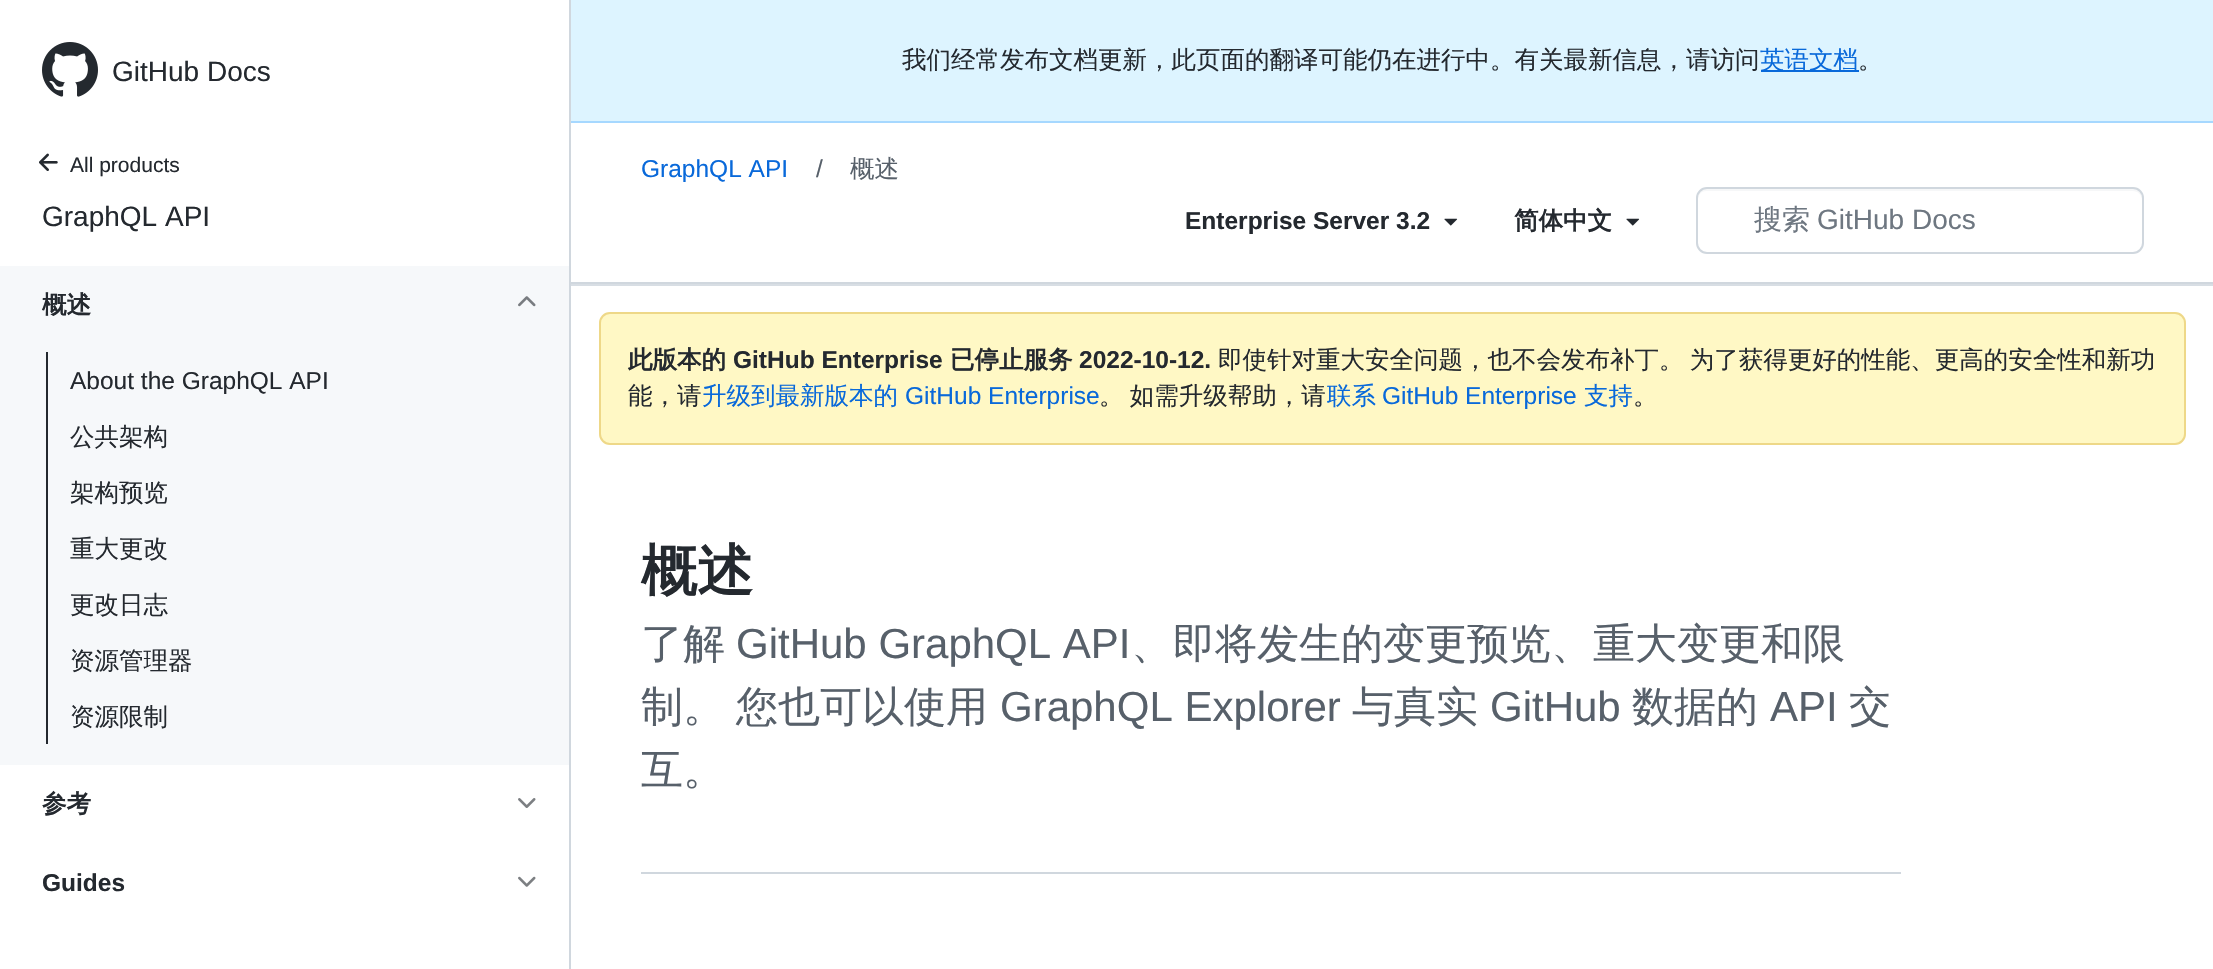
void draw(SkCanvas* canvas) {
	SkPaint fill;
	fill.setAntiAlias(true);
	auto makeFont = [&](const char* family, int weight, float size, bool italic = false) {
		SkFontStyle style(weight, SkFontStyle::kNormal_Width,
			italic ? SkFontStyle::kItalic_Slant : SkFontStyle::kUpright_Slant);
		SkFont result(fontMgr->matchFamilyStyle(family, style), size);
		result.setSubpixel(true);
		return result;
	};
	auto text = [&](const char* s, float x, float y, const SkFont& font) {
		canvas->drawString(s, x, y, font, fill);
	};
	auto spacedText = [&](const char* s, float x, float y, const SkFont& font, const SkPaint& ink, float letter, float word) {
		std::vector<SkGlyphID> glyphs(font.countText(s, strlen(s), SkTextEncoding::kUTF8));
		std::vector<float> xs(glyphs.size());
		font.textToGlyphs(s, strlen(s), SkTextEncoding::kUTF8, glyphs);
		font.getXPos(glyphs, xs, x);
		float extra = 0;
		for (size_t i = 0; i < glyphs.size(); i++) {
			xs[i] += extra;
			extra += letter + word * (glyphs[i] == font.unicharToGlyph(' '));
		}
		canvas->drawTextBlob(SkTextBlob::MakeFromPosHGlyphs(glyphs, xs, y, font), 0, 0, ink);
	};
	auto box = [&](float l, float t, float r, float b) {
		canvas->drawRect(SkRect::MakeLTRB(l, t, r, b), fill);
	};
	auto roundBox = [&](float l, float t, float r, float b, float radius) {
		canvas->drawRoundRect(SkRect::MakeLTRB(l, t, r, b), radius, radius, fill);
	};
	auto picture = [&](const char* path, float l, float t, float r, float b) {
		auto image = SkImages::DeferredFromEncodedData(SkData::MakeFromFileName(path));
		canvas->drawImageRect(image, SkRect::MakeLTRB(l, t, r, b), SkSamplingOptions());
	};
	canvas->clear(0xFFFFFFFF);
	fill.setColor(0xFFD0D7DE);
	box(569, 0, 571, 969);
	picture("image0.png", 42, 42, 98, 97);
	picture("image1.png", 39, 153, 58, 171);
	fill.setColor(0xFFF6F8FA);
	box(0, 266, 569, 765);
	picture("image2.png", 518, 296, 536, 307);
	fill.setColor(0xFF24292F);
	box(46, 352, 48, 744);
	picture("image3.png", 518, 798, 536, 808);
	picture("image4.png", 518, 876, 536, 887);
	fill.setColor(0xFFD8DEE4);
	box(571, 284, 2213, 286);
	fill.setColor(0xFFDDF4FF);
	box(571, 0, 2213, 121);
	fill.setColor(0xFFA6D8FF);
	box(571, 121, 2213, 123);
	fill.setColor(0xFF0969DA);
	box(1761, 70, 1859, 72);
	fill.setColor(0xFFD0D7DE);
	box(571, 282, 2213, 284);
	picture("image5.png", 1444, 218, 1458, 226);
	picture("image5.png", 1626, 218, 1640, 226);
	fill.setColor(0xFFF6F7F8);
	canvas->drawPath(SkPathBuilder().moveTo(1706, 191).lineTo(2133, 191).cubicTo(2138, 191, 2142, 195, 2142, 200).lineTo(2142, 198).cubicTo(2142, 193, 2138, 189, 2133, 189).lineTo(1707, 189).cubicTo(1702, 189, 1698, 193, 1698, 198).lineTo(1698, 200).cubicTo(1698, 195, 1701, 191, 1706, 191).close().detach(), fill);
	fill.setStyle(SkPaint::kStroke_Style);
	fill.setStrokeWidth(2);
	fill.setColor(0xFFD0D7DE);
	canvas->drawRoundRect(SkRect::MakeLTRB(1697, 188, 2143, 253), 10, 10, fill);
	fill.setStyle(SkPaint::kFill_Style);
	fill.setColor(0xFFFFF8C5);
	roundBox(599, 312, 2186, 445, 11);
	fill.setStyle(SkPaint::kStroke_Style);
	fill.setColor(0x66D4A72C);
	canvas->drawRoundRect(SkRect::MakeLTRB(600, 313, 2185, 444), 10, 10, fill);
	fill.setStyle(SkPaint::kFill_Style);
	fill.setColor(0xFFD0D7DE);
	box(641, 872, 1901, 874);
	auto font1 = makeFont("Liberation Sans", 400, 28);
	fill.setColor(0xFF24292F);
	text("GitHub Docs", 112, 81, font1);
	auto font2 = makeFont("Liberation Sans", 400, 21);
	text("All products", 70, 172, font2);
	text("GraphQL API", 42, 226, font1);
	auto font3 = makeFont("WenQuanYi Zen Hei", 700, 24.5f);
	text("概述", 42, 313, font3);
	auto font4 = makeFont("Liberation Sans", 400, 24.5f);
	text("About the GraphQL API", 70, 389, font4);
	auto font5 = makeFont("WenQuanYi Zen Hei", 500, 24.5f);
	text("公共架构", 70, 445, font5);
	text("架构预览", 70, 501, font5);
	text("重大更改", 70, 557, font5);
	text("更改日志", 70, 613, font5);
	text("资源管理器", 70, 669, font5);
	text("资源限制", 70, 725, font5);
	text("参考", 42, 812, font3);
	auto font6 = makeFont("Liberation Sans", 700, 24.5f);
	text("Guides", 42, 891, font6);
	text("我们经常发布文档更新，此页面的翻译可能仍在进行中。有关最新信息，请访问", 902, 68, font5);
	fill.setColor(0xFF0969DA);
	text("英语文档", 1760, 68, font5);
	fill.setColor(0xFF24292F);
	text("。", 1858, 68, font5);
	fill.setColor(0xFF0969DA);
	text("GraphQL API", 641, 177, font4);
	fill.setColor(0xFF57606A);
	text("/", 816, 177, font4);
	text("概述", 850, 177, font5);
	fill.setColor(0xFF24292F);
	text("Enterprise Server 3.2", 1185, 229, font6);
	text("简体中文", 1514, 229, font3);
	auto font7 = makeFont("WenQuanYi Zen Hei", 500, 28);
	fill.setColor(0xFF6E7781);
	text("搜索", 1754, 229, font7);
	text("GitHub Docs", 1817, 229, font1);
	fill.setColor(0xFF24292F);
	text("此版本的", 628, 368, font3);
	text("GitHub Enterprise", 733, 368, font6);
	text("已停止服务", 950, 368, font3);
	text("2022-10-12.", 1079, 368, font6);
	spacedText("即使针对重大安全问题，也不会发布补丁。 为了获得更好的性能、更高的安全性和新功", 1218, 368, font5, fill, 0, -1);
	text("能，请", 628, 404, font5);
	fill.setColor(0xFF0969DA);
	text("升级到最新版本的", 702, 404, font5);
	text("GitHub Enterprise", 905, 404, font4);
	fill.setColor(0xFF24292F);
	spacedText("。 如需升级帮助，请", 1099, 404, font5, fill, 0, -1);
	fill.setColor(0xFF0969DA);
	text("联系", 1327, 404, font5);
	text("GitHub Enterprise", 1382, 404, font4);
	text("支持", 1584, 404, font5);
	fill.setColor(0xFF24292F);
	text("。", 1633, 404, font5);
	auto font8 = makeFont("WenQuanYi Zen Hei", 700, 56);
	text("概述", 641, 590, font8);
	auto font9 = makeFont("WenQuanYi Zen Hei", 500, 42);
	fill.setColor(0xFF57606A);
	text("了解", 641, 658, font9);
	auto font10 = makeFont("Liberation Sans", 400, 42);
	text("GitHub GraphQL API", 736, 658, font10);
	text("、即将发生的变更预览、重大变更和限", 1131, 658, font9);
	text("制。", 641, 721, font9);
	text("您也可以使用", 736, 721, font9);
	text("GraphQL Explorer", 1000, 721, font10);
	text("与真实", 1352, 721, font9);
	text("GitHub", 1490, 721, font10);
	text("数据的", 1632, 721, font9);
	text("API", 1770, 721, font10);
	text("交", 1849, 721, font9);
	text("互。", 641, 784, font9);
}
